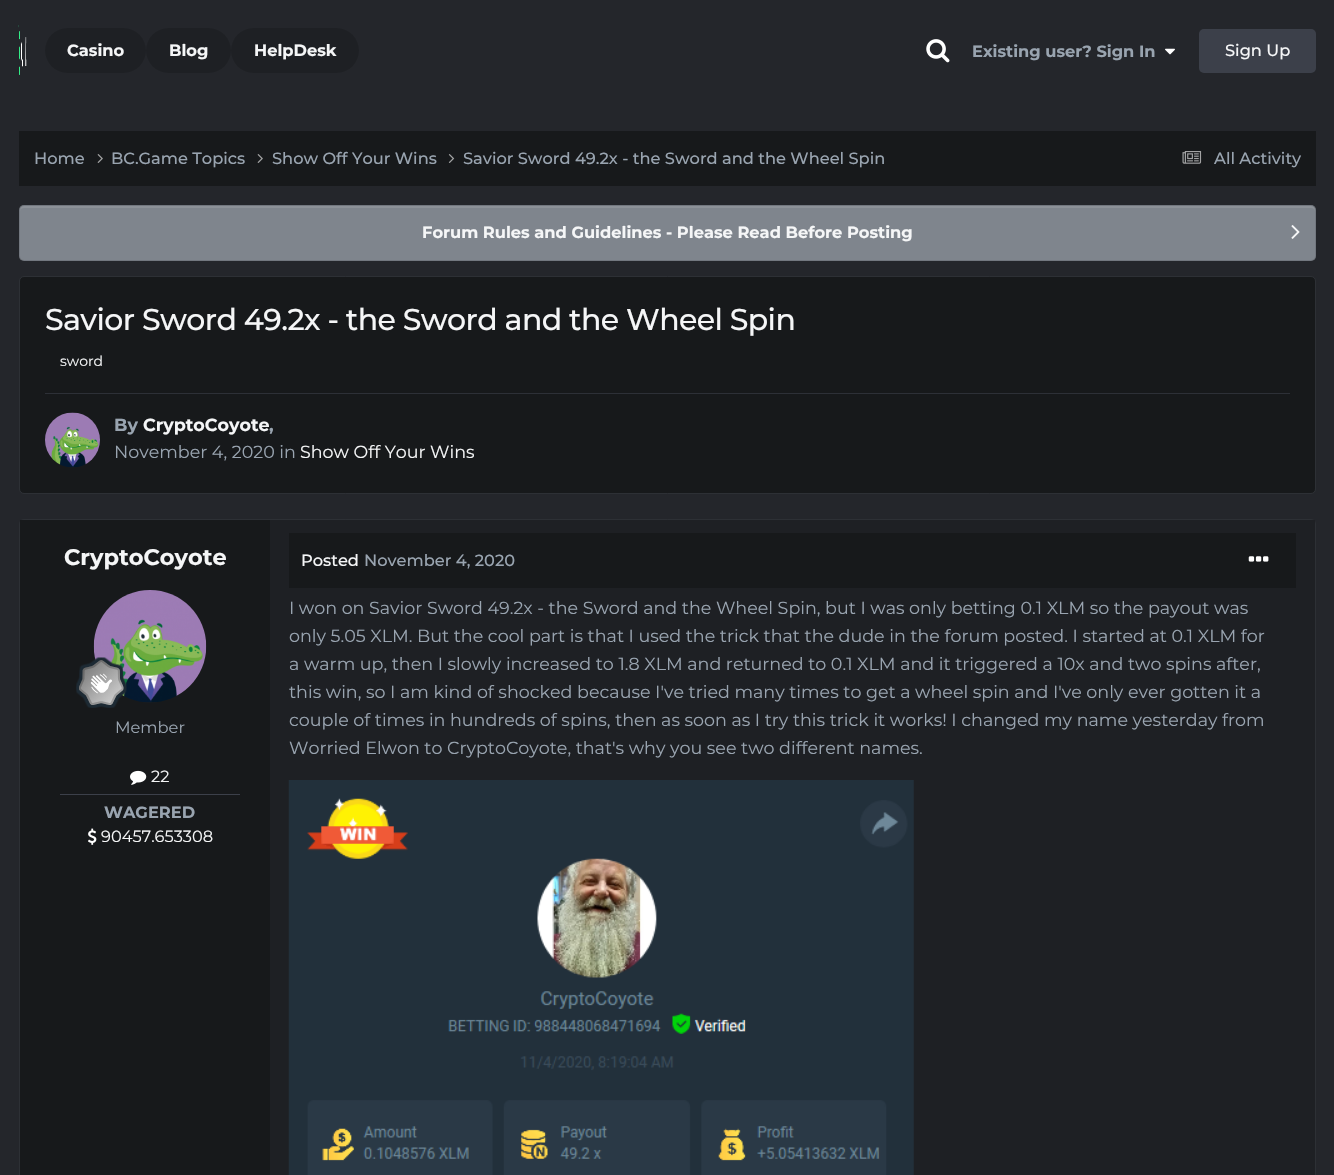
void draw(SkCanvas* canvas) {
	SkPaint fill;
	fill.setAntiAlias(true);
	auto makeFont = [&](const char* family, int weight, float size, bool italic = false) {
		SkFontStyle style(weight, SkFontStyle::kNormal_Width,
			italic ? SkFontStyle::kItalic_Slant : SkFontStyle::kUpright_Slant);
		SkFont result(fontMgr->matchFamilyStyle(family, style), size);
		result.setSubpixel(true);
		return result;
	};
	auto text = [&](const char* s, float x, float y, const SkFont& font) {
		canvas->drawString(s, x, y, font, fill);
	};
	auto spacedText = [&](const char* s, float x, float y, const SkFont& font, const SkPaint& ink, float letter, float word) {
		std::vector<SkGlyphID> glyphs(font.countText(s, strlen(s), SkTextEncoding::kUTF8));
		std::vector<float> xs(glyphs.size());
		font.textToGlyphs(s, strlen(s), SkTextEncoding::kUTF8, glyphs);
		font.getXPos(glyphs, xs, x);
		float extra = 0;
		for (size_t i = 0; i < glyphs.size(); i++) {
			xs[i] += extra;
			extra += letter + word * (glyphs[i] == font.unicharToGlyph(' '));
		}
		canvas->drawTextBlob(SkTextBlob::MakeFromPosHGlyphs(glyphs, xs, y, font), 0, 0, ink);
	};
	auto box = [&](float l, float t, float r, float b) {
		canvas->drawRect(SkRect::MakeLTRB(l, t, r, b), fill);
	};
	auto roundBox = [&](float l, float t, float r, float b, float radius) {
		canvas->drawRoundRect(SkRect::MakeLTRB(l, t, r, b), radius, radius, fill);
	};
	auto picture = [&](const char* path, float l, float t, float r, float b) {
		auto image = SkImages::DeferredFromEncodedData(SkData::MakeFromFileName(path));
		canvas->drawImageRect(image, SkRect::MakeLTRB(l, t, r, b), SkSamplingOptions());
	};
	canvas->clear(0xFF24262B);
	picture("image0.png", 18, 25, 27, 75);
	fill.setColor(0xFF1E2024);
	roundBox(45, 28, 146, 73, 22.5f);
	roundBox(146, 28, 231, 73, 22.5f);
	roundBox(231, 28, 359, 73, 22.5f);
	picture("image1.png", 926, 39, 950, 63);
	picture("image2.png", 1165, 48, 1175, 55);
	fill.setColor(0xFF3C404A);
	roundBox(1199, 29, 1316, 73, 5);
	fill.setColor(0xFF17191B);
	box(19, 131, 1316, 186);
	picture("image3.png", 97, 154, 103, 163);
	picture("image3.png", 257, 154, 263, 163);
	picture("image4.png", 448, 154, 455, 163);
	picture("image5.png", 1182, 151, 1202, 164);
	fill.setColor(0xFF7F858D);
	roundBox(19, 205, 1316, 261, 5);
	fill.setColor(0xFF8C9198);
	canvas->drawPath(SkPathBuilder().moveTo(24, 208).lineTo(1311, 208).cubicTo(1313, 208, 1315, 209, 1315, 211).lineTo(1315, 210).cubicTo(1315, 208, 1313, 206, 1311, 206).lineTo(24, 206).cubicTo(22, 206, 20, 208, 20, 210).lineTo(20, 211).cubicTo(20, 209, 22, 208, 24, 208).close().detach(), fill);
	fill.setStyle(SkPaint::kStroke_Style);
	fill.setStrokeWidth(1);
	fill.setColor(0x1A000000);
	canvas->drawRoundRect(SkRect::MakeLTRB(19.5f, 205.5f, 1315.5f, 260.5f), 4.5f, 4.5f, fill);
	picture("image6.png", 1291, 225, 1300, 239);
	fill.setStyle(SkPaint::kFill_Style);
	fill.setColor(0xFF17191B);
	canvas->drawRoundRect(SkRect::MakeLTRB(19.5f, 276.5f, 1315.5f, 493.5f), 4.5f, 4.5f, fill);
	fill.setStyle(SkPaint::kStroke_Style);
	fill.setColor(0xFF2D3035);
	canvas->drawRoundRect(SkRect::MakeLTRB(19.5f, 276.5f, 1315.5f, 493.5f), 4.5f, 4.5f, fill);
	fill.setStyle(SkPaint::kFill_Style);
	fill.setColor(0xFF2D3037);
	box(45, 393, 1290, 394);
	picture("image7.png", 45, 412, 100, 468);
	fill.setStyle(SkPaint::kStroke_Style);
	fill.setColor(0xFF2D3035);
	canvas->drawRoundRect(SkRect::MakeLTRB(19.5f, 519.5f, 1315.5f, 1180.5f), 4.5f, 4.5f, fill);
	fill.setStyle(SkPaint::kFill_Style);
	fill.setColor(0xFF17191B);
	box(20, 520, 270, 1175);
	picture("image8.png", 93, 590, 207, 703);
	picture("image9.png", 76, 657, 127, 708);
	picture("image10.png", 130, 770, 147, 785);
	fill.setColor(0xFF3C404A);
	box(60, 794, 240, 795);
	picture("image11.png", 88, 828, 97, 845);
	fill.setColor(0xFF1E2024);
	box(270, 520, 1315, 1175);
	fill.setColor(0xFF17191B);
	box(289, 533, 1296, 588);
	picture("image12.png", 1248, 556, 1269, 562);
	picture("image13.png", 288, 780, 914, 1175);
	auto font1 = makeFont("Montserrat", 700, 16.25f);
	fill.setColor(0xFFF5F6F7);
	text("Casino", 67, 56, font1);
	text("Blog", 169, 56, font1);
	text("HelpDesk", 254, 56, font1);
	fill.setColor(0xFF99A4B0);
	text("Existing user? Sign In", 972, 57, font1);
	auto font2 = makeFont("Montserrat", 500, 16.25f);
	fill.setColor(0xFFF5F6F7);
	text("Sign Up", 1225, 56, font2);
	fill.setColor(0xFF99A4B0);
	text("Home", 34, 164, font2);
	text("BC.Game Topics", 111, 164, font2);
	text("Show Off Your Wins", 272, 164, font2);
	text("Savior Sword 49.2x - the Sword and the Wheel Spin", 463, 164, font2);
	text("All Activity", 1214, 164, font2);
	fill.setColor(0xFFF5F6F7);
	text("Forum Rules and Guidelines - Please Read Before Posting", 422, 238, font1);
	auto font3 = makeFont("Montserrat", 500, 30);
	spacedText("Savior Sword 49.2x - the Sword and the Wheel Spin", 45, 330, font3, fill, -0.6f, 0);
	auto font4 = makeFont("Montserrat", 400, 14);
	text("sword", 60, 366, font4);
	auto font5 = makeFont("Montserrat", 700, 17.5f);
	fill.setColor(0xFF99A4B0);
	text("By", 114, 431, font5);
	fill.setColor(0xFFF5F6F7);
	text("CryptoCoyote", 143, 431, font5);
	fill.setColor(0xFF99A4B0);
	text(",", 269, 431, font5);
	auto font6 = makeFont("Montserrat", 400, 17.5f);
	text("November 4, 2020 in", 114, 458, font6);
	fill.setColor(0xFFF5F6F7);
	text("Show Off Your Wins", 300, 458, font6);
	auto font7 = makeFont("Montserrat", 700, 22.5f);
	text("CryptoCoyote", 64, 565, font7);
	auto font8 = makeFont("Montserrat", 400, 16.25f);
	fill.setColor(0xFF99A4B0);
	text("Member", 115, 733, font8);
	fill.setColor(0xFFF5F6F7);
	text("22", 151, 782, font8);
	fill.setColor(0xFF99A4B0);
	text("WAGERED", 104, 818, font1);
	fill.setColor(0xFFF5F6F7);
	text("90457.653308", 101, 842, font8);
	text("Posted", 301, 566, font2);
	fill.setColor(0xFF99A4B0);
	text("November 4, 2020", 364, 566, font2);
	text("I won on Savior Sword 49.2x - the Sword and the Wheel Spin, but I was only betting 0.1 XLM so the payout was", 289, 614, font6);
	text("only 5.05 XLM. But the cool part is that I used the trick that the dude in the forum posted. I started at 0.1 XLM for", 289, 642, font6);
	text("a warm up, then I slowly increased to 1.8 XLM and returned to 0.1 XLM and it triggered a 10x and two spins after,", 289, 670, font6);
	text("this win, so I am kind of shocked because I've tried many times to get a wheel spin and I've only ever gotten it a", 289, 698, font6);
	text("couple of times in hundreds of spins, then as soon as I try this trick it works! I changed my name yesterday from", 289, 726, font6);
	text("Worried Elwon to CryptoCoyote, that's why you see two different names.", 289, 754, font6);
}
